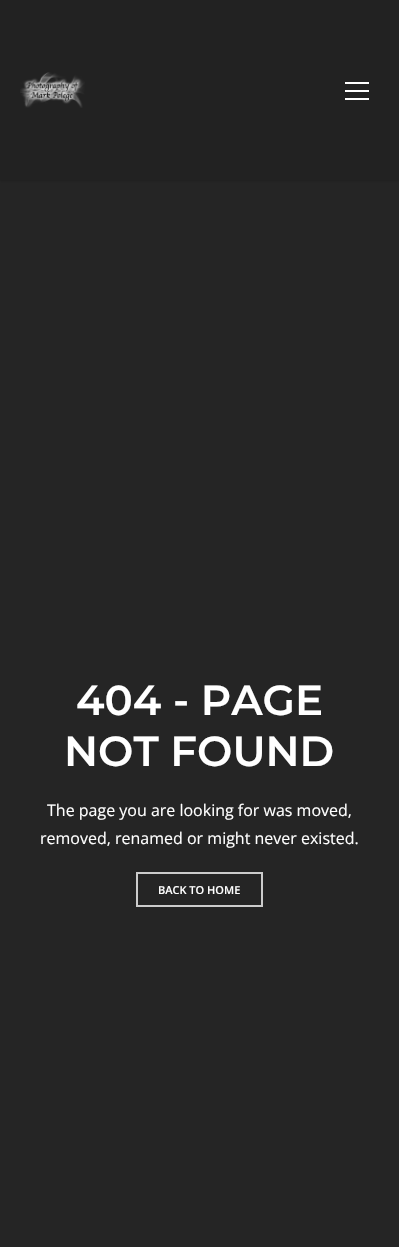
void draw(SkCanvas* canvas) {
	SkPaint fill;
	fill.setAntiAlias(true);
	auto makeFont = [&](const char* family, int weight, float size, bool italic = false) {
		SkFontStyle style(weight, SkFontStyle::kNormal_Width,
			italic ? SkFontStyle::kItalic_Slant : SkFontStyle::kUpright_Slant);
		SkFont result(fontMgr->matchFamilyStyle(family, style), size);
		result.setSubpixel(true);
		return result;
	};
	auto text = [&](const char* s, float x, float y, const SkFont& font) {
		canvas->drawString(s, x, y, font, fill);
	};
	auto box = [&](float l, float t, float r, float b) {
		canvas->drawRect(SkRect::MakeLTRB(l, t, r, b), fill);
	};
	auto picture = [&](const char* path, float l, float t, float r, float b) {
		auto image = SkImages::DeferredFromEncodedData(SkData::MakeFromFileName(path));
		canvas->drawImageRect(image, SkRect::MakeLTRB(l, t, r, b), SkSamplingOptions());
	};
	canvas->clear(0xFF252525);
	fill.setColor(0x4D000000);
	fill.setMaskFilter(SkMaskFilter::MakeBlur(kNormal_SkBlurStyle, 1.5f));
	canvas->drawRect(SkRect::MakeLTRB(0, 0, 399, 180), fill);
	fill.setMaskFilter(nullptr);
	fill.setColor(0xFF222222);
	box(0, 0, 399, 180);
	picture("image0.png", 20, 72, 85, 108);
	fill.setColor(0xFFFFFFFF);
	box(345, 90, 369, 92);
	box(345, 82, 369, 84);
	box(345, 98, 369, 100);
	fill.setStyle(SkPaint::kStroke_Style);
	fill.setStrokeWidth(2);
	fill.setColor(0xFFCCCCCC);
	canvas->drawRect(SkRect::MakeLTRB(137, 873, 262, 906), fill);
	auto font1 = makeFont("Montserrat", 600, 42);
	fill.setStyle(SkPaint::kFill_Style);
	fill.setColor(0xFFFFFFFF);
	text("404 - PAGE", 76, 715, font1);
	text("NOT FOUND", 64, 766, font1);
	auto font2 = makeFont("Open Sans", 400, 16);
	text("The page you are looking for was moved,", 47, 816, font2);
	text("removed, renamed or might never existed.", 40, 844, font2);
	auto font3 = makeFont("Open Sans", 600, 11);
	text("BACK TO HOME", 158, 894, font3);
}
